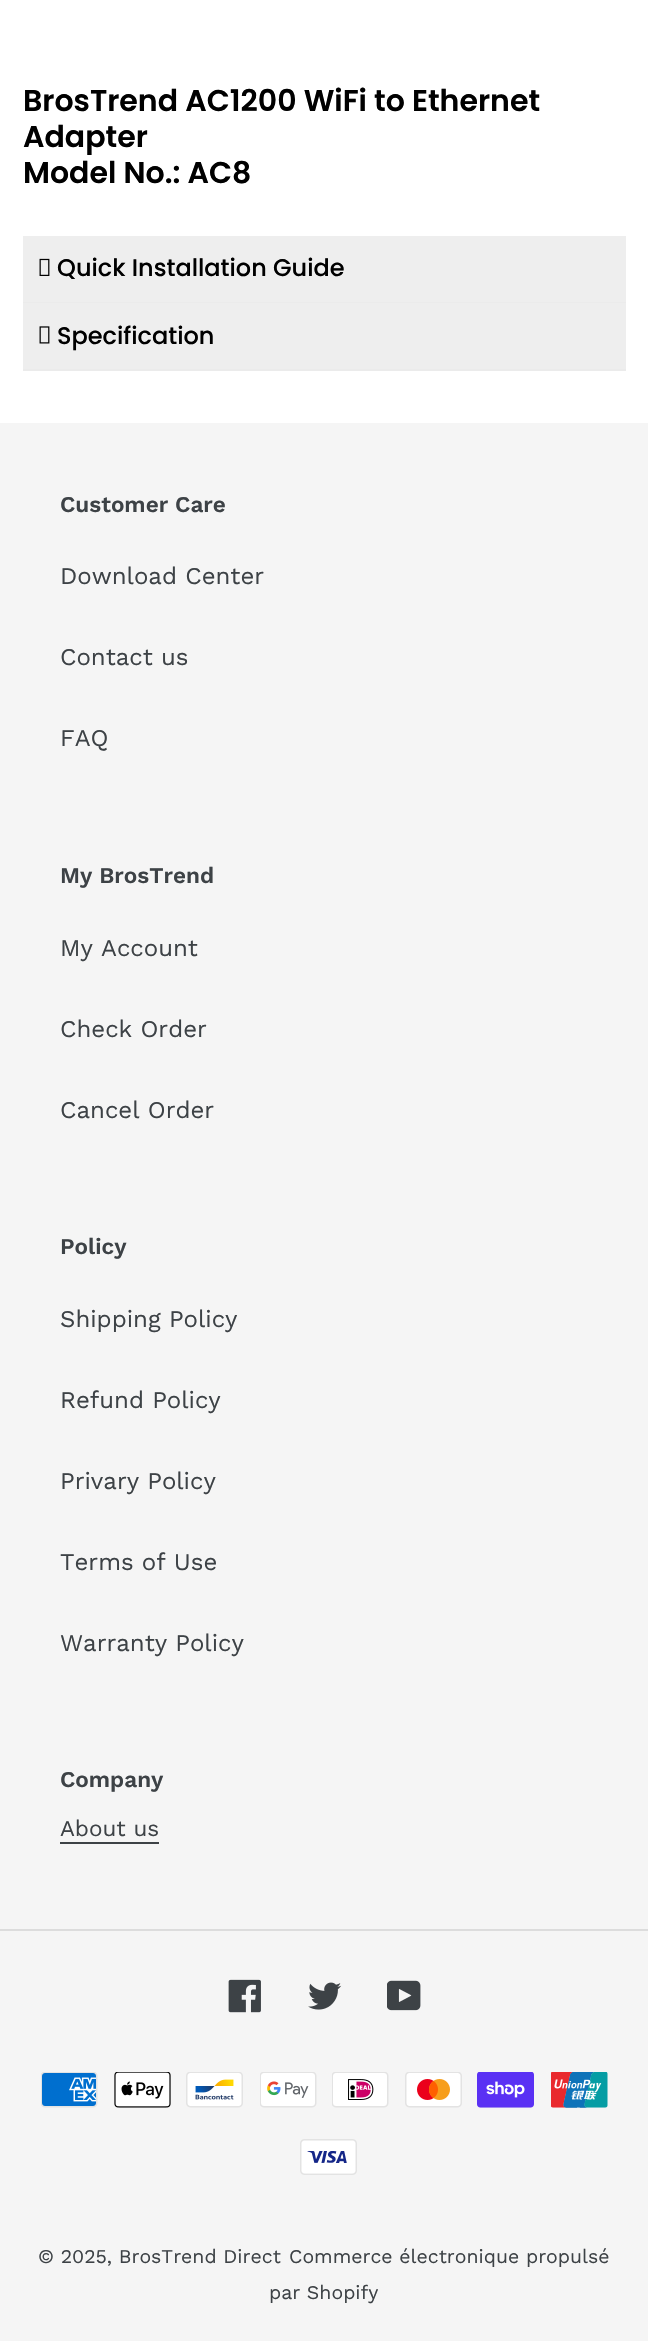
void draw(SkCanvas* canvas) {
	SkPaint fill;
	fill.setAntiAlias(true);
	auto makeFont = [&](const char* family, int weight, float size, bool italic = false) {
		SkFontStyle style(weight, SkFontStyle::kNormal_Width,
			italic ? SkFontStyle::kItalic_Slant : SkFontStyle::kUpright_Slant);
		SkFont result(fontMgr->matchFamilyStyle(family, style), size);
		result.setSubpixel(true);
		return result;
	};
	auto text = [&](const char* s, float x, float y, const SkFont& font) {
		canvas->drawString(s, x, y, font, fill);
	};
	auto box = [&](float l, float t, float r, float b) {
		canvas->drawRect(SkRect::MakeLTRB(l, t, r, b), fill);
	};
	auto picture = [&](const char* path, float l, float t, float r, float b) {
		auto image = SkImages::DeferredFromEncodedData(SkData::MakeFromFileName(path));
		canvas->drawImageRect(image, SkRect::MakeLTRB(l, t, r, b), SkSamplingOptions());
	};
	canvas->clear(0xFFFFFFFF);
	fill.setColor(0xFFEEEEEE);
	box(23, 236, 626, 302);
	fill.setColor(0xFFEBEBEB);
	box(23, 302, 626, 303);
	picture("image0.png", 39, 258, 50, 276);
	fill.setColor(0xFFEEEEEE);
	box(23, 303, 626, 369);
	fill.setColor(0xFFEBEBEB);
	box(23, 369, 626, 371);
	picture("image1.png", 39, 326, 50, 344);
	fill.setColor(0xFFF5F5F5);
	box(0, 423, 648, 2341);
	fill.setColor(0xFF3D4246);
	box(60, 1842, 159, 1844);
	fill.setColor(0xFFDCDCDC);
	box(0, 1929, 648, 1931);
	picture("image2.png", 228, 1979, 261, 2013);
	picture("image3.png", 308, 1982, 342, 2010);
	picture("image4.png", 387, 1980, 421, 2011);
	picture("image5.png", 41, 2072, 98, 2108);
	picture("image6.png", 114, 2072, 171, 2108);
	picture("image7.png", 186, 2072, 243, 2108);
	picture("image8.png", 260, 2072, 317, 2108);
	picture("image9.png", 332, 2072, 389, 2108);
	picture("image10.png", 405, 2072, 462, 2108);
	picture("image11.png", 477, 2072, 534, 2108);
	picture("image12.png", 551, 2072, 608, 2108);
	picture("image13.png", 300, 2139, 357, 2175);
	auto font1 = makeFont("Poppins", 600, 30);
	fill.setColor(0xFF000000);
	text("BrosTrend AC1200 WiFi to Ethernet", 23, 111, font1);
	text("Adapter", 23, 147, font1);
	text("Model No.: AC8", 23, 183, font1);
	auto font2 = makeFont("Poppins", 500, 24);
	text("Quick Installation Guide", 57, 276, font2);
	text("Specification", 57, 344, font2);
	auto font3 = makeFont("Work Sans", 600, 22.5f);
	fill.setColor(0xFF3D4246);
	text("Customer Care", 60, 512, font3);
	auto font4 = makeFont("Work Sans", 400, 24);
	text("Download Center", 60, 584, font4);
	text("Contact us", 60, 665, font4);
	text("FAQ", 60, 746, font4);
	text("My BrosTrend", 60, 883, font3);
	text("My Account", 60, 956, font4);
	text("Check Order", 60, 1037, font4);
	text("Cancel Order", 60, 1118, font4);
	text("Policy", 60, 1254, font3);
	text("Shipping Policy", 60, 1327, font4);
	text("Refund Policy", 60, 1408, font4);
	text("Privary Policy", 60, 1489, font4);
	text("Terms of Use", 60, 1570, font4);
	text("Warranty Policy", 60, 1651, font4);
	text("Company", 60, 1787, font3);
	auto font5 = makeFont("Work Sans", 400, 22.5f);
	text("About us", 60, 1836, font5);
	auto font6 = makeFont("Work Sans", 400, 19.5f);
	text("© 2025, BrosTrend Direct", 38, 2263, font6);
	text("Commerce électronique propulsé", 289, 2263, font6);
	text("par Shopify", 269, 2299, font6);
}
